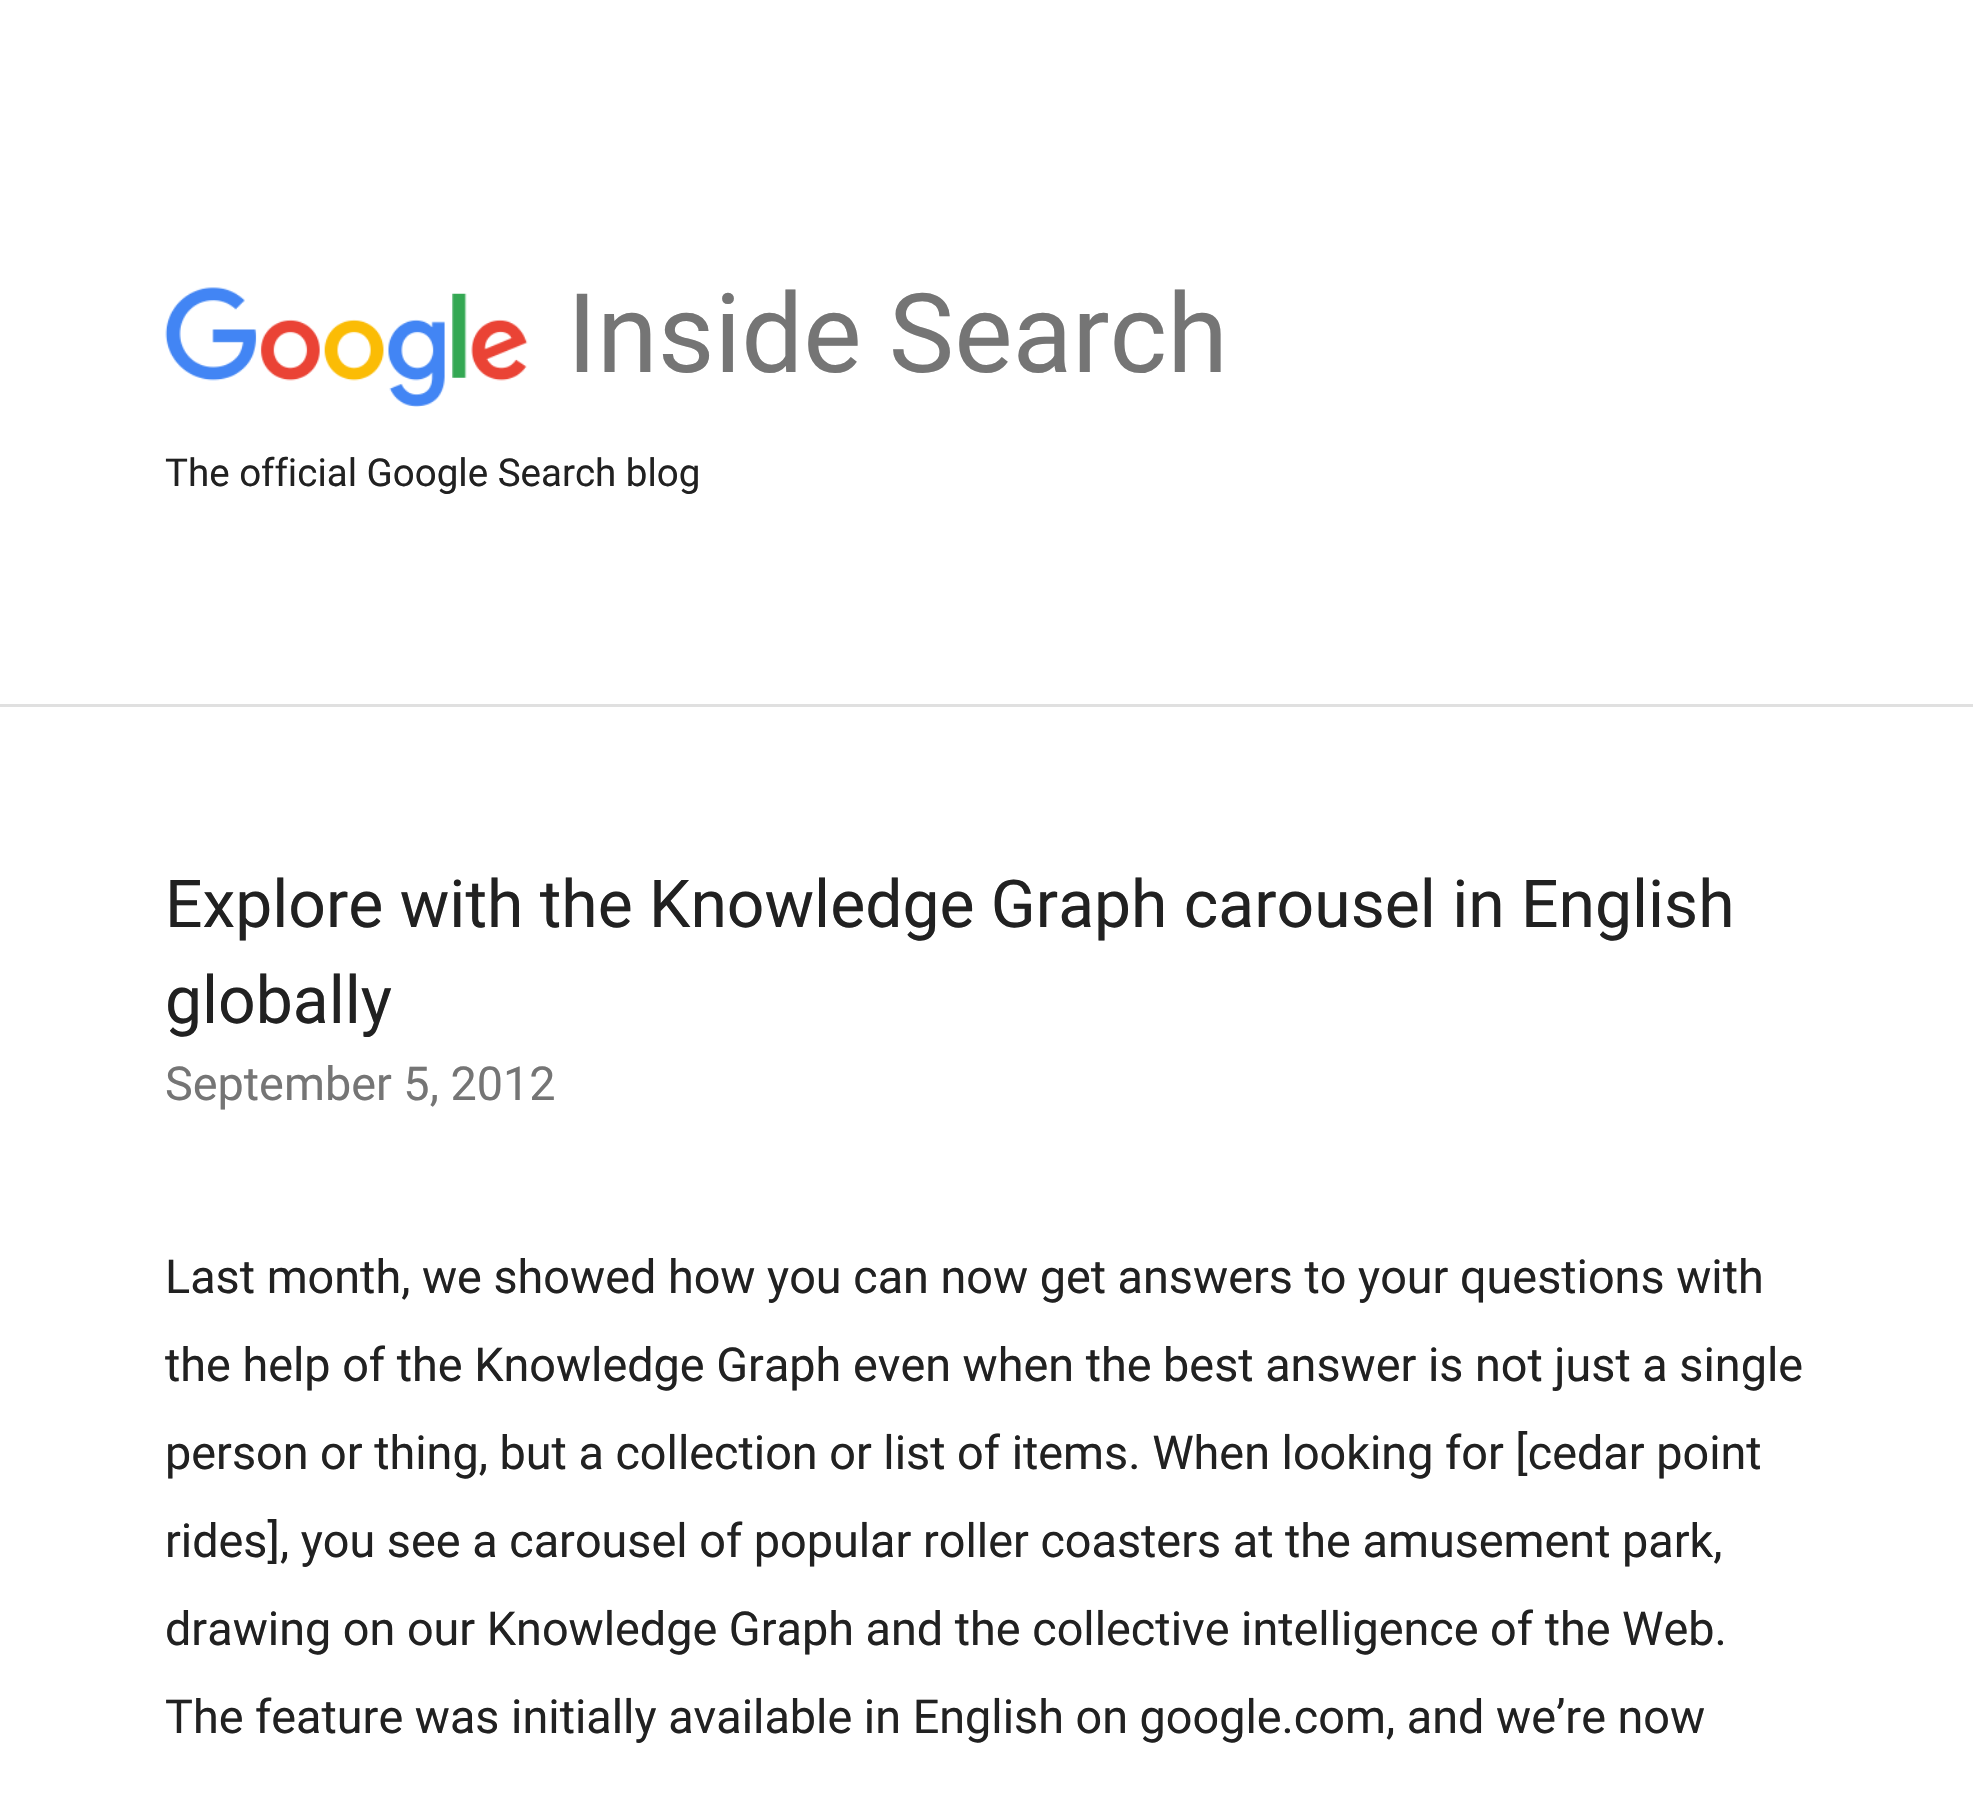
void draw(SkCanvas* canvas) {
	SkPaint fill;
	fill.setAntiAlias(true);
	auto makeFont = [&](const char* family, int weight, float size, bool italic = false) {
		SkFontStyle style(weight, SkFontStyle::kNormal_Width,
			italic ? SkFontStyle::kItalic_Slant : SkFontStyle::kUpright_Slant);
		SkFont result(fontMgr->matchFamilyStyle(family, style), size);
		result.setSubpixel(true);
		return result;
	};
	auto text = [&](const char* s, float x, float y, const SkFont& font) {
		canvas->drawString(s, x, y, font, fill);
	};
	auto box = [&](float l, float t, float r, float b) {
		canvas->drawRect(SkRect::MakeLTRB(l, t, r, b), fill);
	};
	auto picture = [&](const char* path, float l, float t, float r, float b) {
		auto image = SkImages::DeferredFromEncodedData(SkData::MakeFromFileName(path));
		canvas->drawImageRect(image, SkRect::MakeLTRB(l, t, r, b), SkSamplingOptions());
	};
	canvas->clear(0xFFFFFFFF);
	fill.setColor(0xFFE0E0E0);
	box(0, 704, 1973, 707);
	picture("image0.png", 165, 287, 528, 407);
	auto font1 = makeFont("Roboto", 400, 110);
	fill.setColor(0xFF757575);
	text("Inside Search", 567, 372, font1);
	auto font2 = makeFont("Roboto", 400, 38.5f);
	fill.setColor(0xFF212121);
	text("The official Google Search blog", 165, 486, font2);
	auto font3 = makeFont("Roboto", 400, 66);
	text("Explore with the Knowledge Graph carousel in English", 165, 927, font3);
	text("globally", 165, 1023, font3);
	auto font4 = makeFont("Roboto", 400, 46.75f);
	fill.setColor(0xFF757575);
	text("September 5, 2012", 165, 1100, font4);
	fill.setColor(0xFF212121);
	text("Last month, we showed how you can now get answers to your questions with", 165, 1293, font4);
	text("the help of the Knowledge Graph even when the best answer is not just a single", 165, 1381, font4);
	text("person or thing, but a collection or list of items. When looking for [cedar point", 165, 1469, font4);
	text("rides], you see a carousel of popular roller coasters at the amusement park,", 165, 1557, font4);
	text("drawing on our Knowledge Graph and the collective intelligence of the Web.", 165, 1645, font4);
	text("The feature was initially available in English on google.com, and we’re now", 165, 1733, font4);
}
